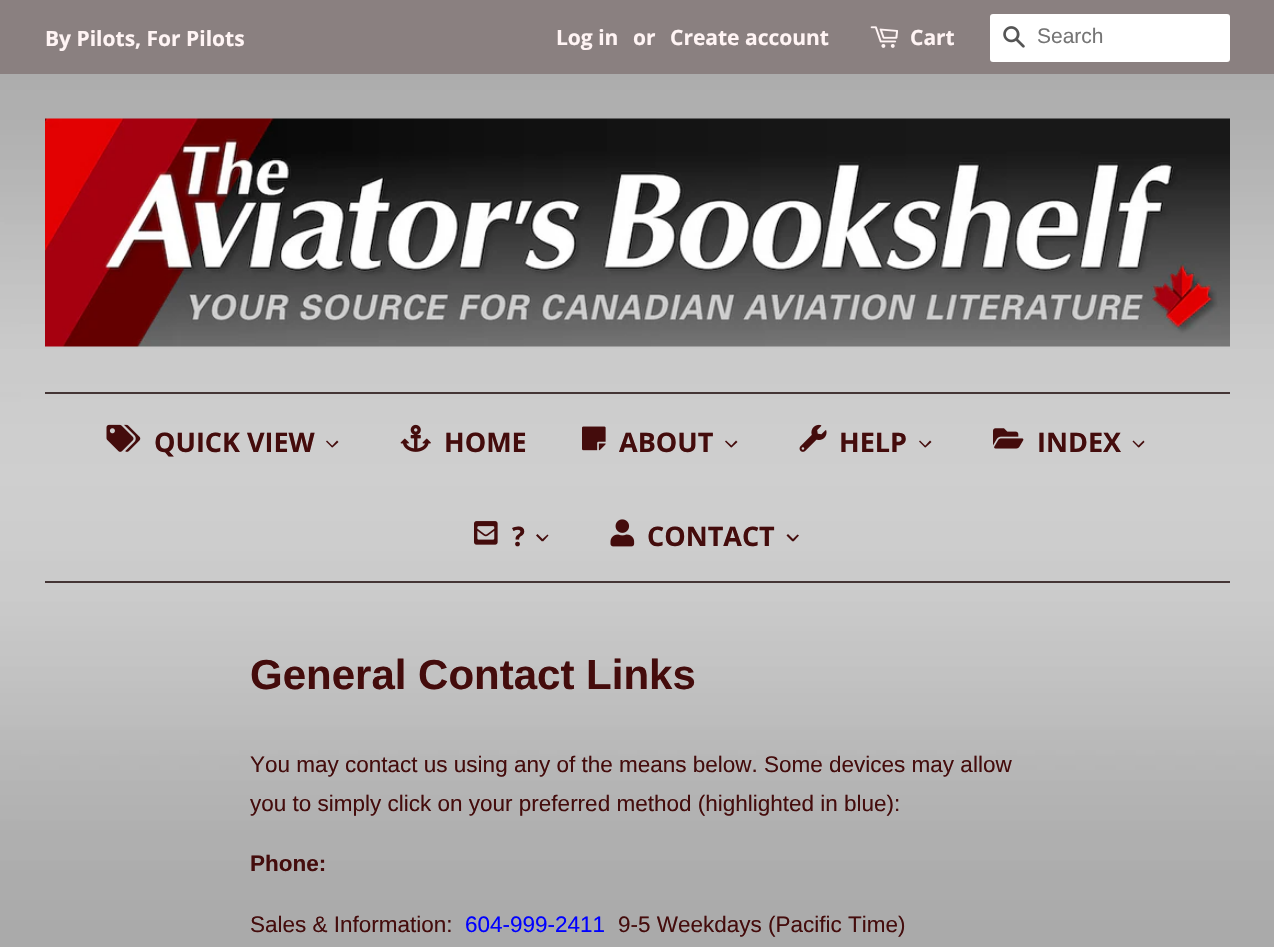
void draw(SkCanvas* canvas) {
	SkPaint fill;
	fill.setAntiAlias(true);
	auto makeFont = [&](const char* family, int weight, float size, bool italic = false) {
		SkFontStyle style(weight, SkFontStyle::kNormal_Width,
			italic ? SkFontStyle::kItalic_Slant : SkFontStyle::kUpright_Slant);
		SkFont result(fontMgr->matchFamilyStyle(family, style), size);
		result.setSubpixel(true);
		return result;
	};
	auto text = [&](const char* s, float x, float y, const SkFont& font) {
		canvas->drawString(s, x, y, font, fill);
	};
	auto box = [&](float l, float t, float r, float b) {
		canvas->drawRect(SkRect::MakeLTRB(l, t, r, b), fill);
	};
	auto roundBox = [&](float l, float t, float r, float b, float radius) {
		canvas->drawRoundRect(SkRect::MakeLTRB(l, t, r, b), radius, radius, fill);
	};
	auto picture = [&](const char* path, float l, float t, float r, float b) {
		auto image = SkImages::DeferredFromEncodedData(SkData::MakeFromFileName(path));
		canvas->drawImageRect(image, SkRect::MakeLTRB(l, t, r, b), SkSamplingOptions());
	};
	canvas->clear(0xFFFFFFFF);
	picture("image0.png", 0, 74, 1274, 947);
	fill.setColor(0xFF8A8080);
	box(0, 0, 1274, 74);
	picture("image1.png", 870, 26, 898, 48);
	fill.setColor(0xFFFFFFFF);
	roundBox(990, 14, 1230, 62, 3);
	picture("image2.png", 1003, 26, 1025, 48);
	picture("image3.png", 45, 118, 1230, 347);
	fill.setColor(0xFF443535);
	box(45, 392, 1230, 394);
	box(45, 581, 1230, 583);
	picture("image4.png", 106, 424, 141, 452);
	fill.setColor(0xFF440C0C);
	canvas->drawPath(SkPathBuilder().moveTo(337, 440.5f).lineTo(338.5f, 442).lineTo(332.5f, 447.5f).lineTo(331.5f, 446.5f).close().detach(), fill);
	canvas->drawPath(SkPathBuilder().moveTo(327, 440.5f).lineTo(333, 446.5f).lineTo(332, 447.5f).lineTo(326, 441.5f).close().detach(), fill);
	picture("image5.png", 400, 424, 431, 452);
	picture("image6.png", 582, 426, 606, 451);
	canvas->drawPath(SkPathBuilder().moveTo(736, 440.5f).lineTo(737.5f, 442).lineTo(731.5f, 447.5f).lineTo(730.5f, 446.5f).close().detach(), fill);
	canvas->drawPath(SkPathBuilder().moveTo(726, 440.5f).lineTo(732.5f, 446.5f).lineTo(731, 447.5f).lineTo(725, 441.5f).close().detach(), fill);
	picture("image7.png", 799, 424, 827, 452);
	canvas->drawPath(SkPathBuilder().moveTo(930, 440.5f).lineTo(931.5f, 442).lineTo(925.5f, 447.5f).lineTo(924.5f, 446.5f).close().detach(), fill);
	canvas->drawPath(SkPathBuilder().moveTo(920, 440.5f).lineTo(926, 446.5f).lineTo(925, 447.5f).lineTo(919, 441.5f).close().detach(), fill);
	picture("image8.png", 993, 428, 1024, 449);
	canvas->drawPath(SkPathBuilder().moveTo(1143.5f, 440.5f).lineTo(1144.5f, 442).lineTo(1139, 447.5f).lineTo(1137.5f, 446.5f).close().detach(), fill);
	canvas->drawPath(SkPathBuilder().moveTo(1133.5f, 440.5f).lineTo(1139.5f, 446.5f).lineTo(1138.5f, 447.5f).lineTo(1132.5f, 441.5f).close().detach(), fill);
	picture("image9.png", 474, 521, 498, 545);
	canvas->drawPath(SkPathBuilder().moveTo(547.5f, 534.5f).lineTo(548.5f, 535.5f).lineTo(543, 541.5f).lineTo(541.5f, 540).close().detach(), fill);
	canvas->drawPath(SkPathBuilder().moveTo(537.5f, 534).lineTo(543.5f, 540).lineTo(542, 541.5f).lineTo(536, 535.5f).close().detach(), fill);
	picture("image10.png", 610, 519, 635, 547);
	canvas->drawPath(SkPathBuilder().moveTo(797.5f, 534.5f).lineTo(799, 535.5f).lineTo(793.5f, 541.5f).lineTo(792, 540).close().detach(), fill);
	canvas->drawPath(SkPathBuilder().moveTo(788, 534).lineTo(794, 540).lineTo(792.5f, 541.5f).lineTo(786.5f, 535.5f).close().detach(), fill);
	auto font1 = makeFont("Open Sans", 700, 21);
	fill.setColor(0xFFFFF4F4);
	text("By Pilots, For Pilots", 45, 46, font1);
	text("Log in", 556, 45, font1);
	text("or", 633, 45, font1);
	text("Create account", 670, 45, font1);
	text("Cart", 910, 45, font1);
	auto font2 = makeFont("Liberation Sans", 400, 21);
	fill.setColor(0xFF757575);
	text("Search", 1037, 43, font2);
	auto font3 = makeFont("Open Sans", 700, 27);
	fill.setColor(0xFF440C0C);
	text("QUICK VIEW", 154, 452, font3);
	text("HOME", 444, 452, font3);
	text("ABOUT", 619, 452, font3);
	text("HELP", 839, 452, font3);
	text("INDEX", 1037, 452, font3);
	text("?", 512, 546, font3);
	text("CONTACT", 647, 546, font3);
	auto font4 = makeFont("Liberation Sans", 700, 42);
	text("General Contact Links", 250, 689, font4);
	auto font5 = makeFont("Liberation Sans", 400, 22.5f);
	text("You may contact us using any of the means below. Some devices may allow", 250, 772, font5);
	text("you to simply click on your preferred method (highlighted in blue):", 250, 811, font5);
	auto font6 = makeFont("Liberation Sans", 700, 22.5f);
	text("Phone:", 250, 871, font6);
	text("Sales & Information:", 250, 932, font5);
	fill.setColor(0xFF0000FF);
	text("604-999-2411", 465, 932, font5);
	fill.setColor(0xFF440C0C);
	text("9-5 Weekdays (Pacific Time)", 618, 932, font5);
}
